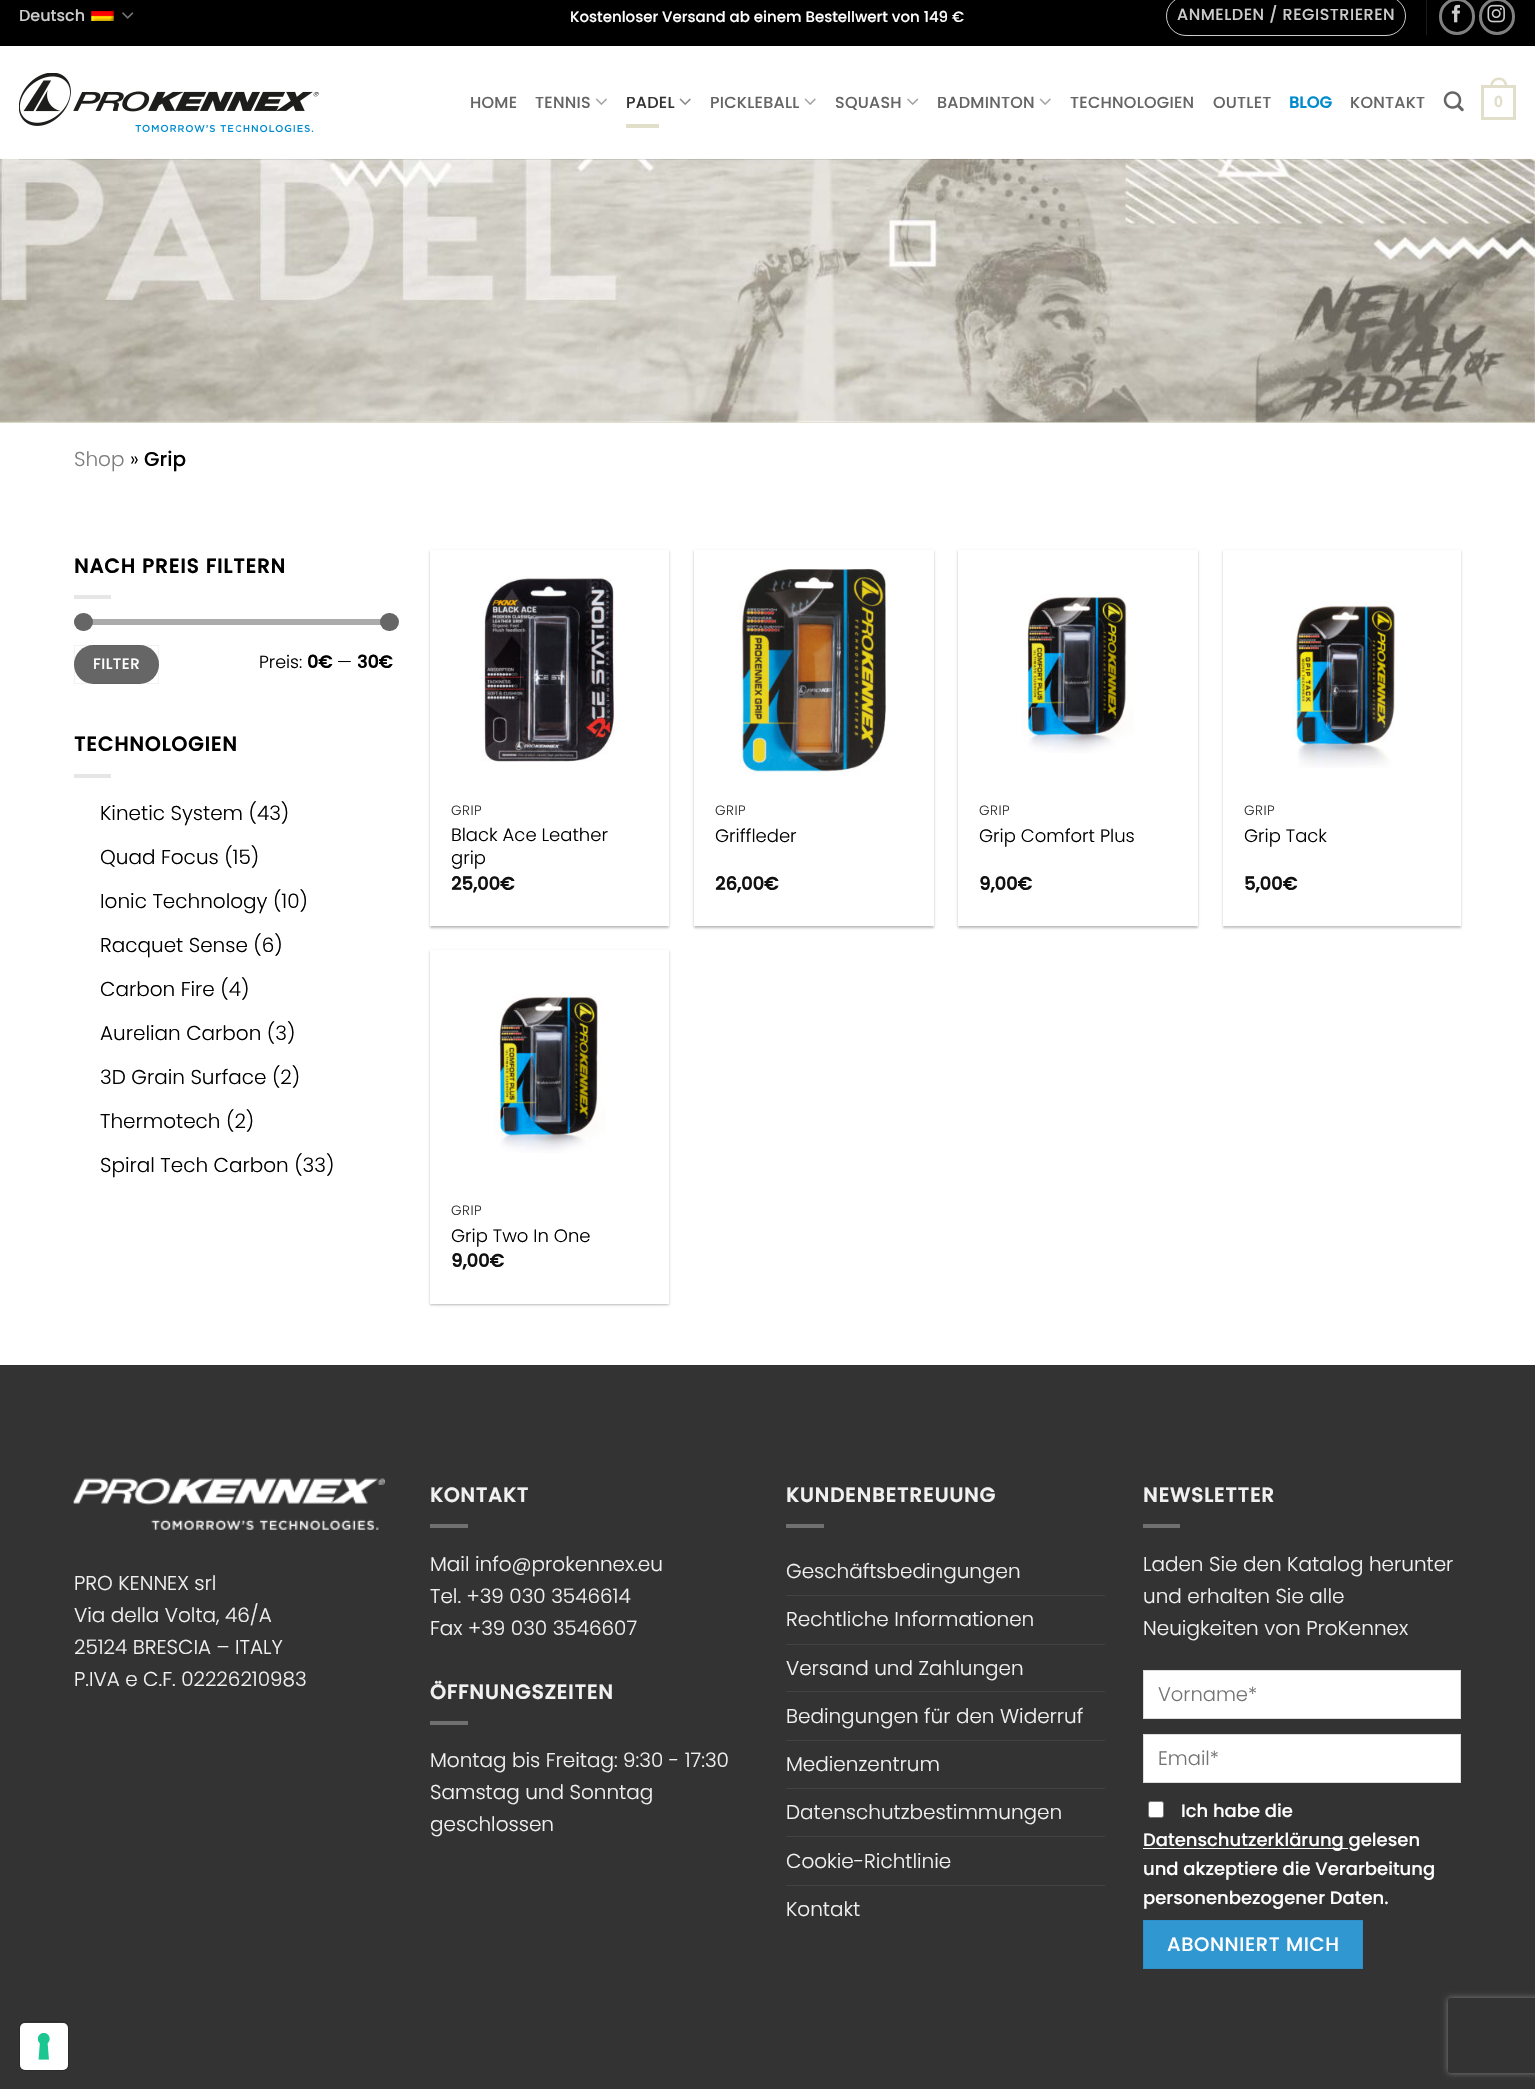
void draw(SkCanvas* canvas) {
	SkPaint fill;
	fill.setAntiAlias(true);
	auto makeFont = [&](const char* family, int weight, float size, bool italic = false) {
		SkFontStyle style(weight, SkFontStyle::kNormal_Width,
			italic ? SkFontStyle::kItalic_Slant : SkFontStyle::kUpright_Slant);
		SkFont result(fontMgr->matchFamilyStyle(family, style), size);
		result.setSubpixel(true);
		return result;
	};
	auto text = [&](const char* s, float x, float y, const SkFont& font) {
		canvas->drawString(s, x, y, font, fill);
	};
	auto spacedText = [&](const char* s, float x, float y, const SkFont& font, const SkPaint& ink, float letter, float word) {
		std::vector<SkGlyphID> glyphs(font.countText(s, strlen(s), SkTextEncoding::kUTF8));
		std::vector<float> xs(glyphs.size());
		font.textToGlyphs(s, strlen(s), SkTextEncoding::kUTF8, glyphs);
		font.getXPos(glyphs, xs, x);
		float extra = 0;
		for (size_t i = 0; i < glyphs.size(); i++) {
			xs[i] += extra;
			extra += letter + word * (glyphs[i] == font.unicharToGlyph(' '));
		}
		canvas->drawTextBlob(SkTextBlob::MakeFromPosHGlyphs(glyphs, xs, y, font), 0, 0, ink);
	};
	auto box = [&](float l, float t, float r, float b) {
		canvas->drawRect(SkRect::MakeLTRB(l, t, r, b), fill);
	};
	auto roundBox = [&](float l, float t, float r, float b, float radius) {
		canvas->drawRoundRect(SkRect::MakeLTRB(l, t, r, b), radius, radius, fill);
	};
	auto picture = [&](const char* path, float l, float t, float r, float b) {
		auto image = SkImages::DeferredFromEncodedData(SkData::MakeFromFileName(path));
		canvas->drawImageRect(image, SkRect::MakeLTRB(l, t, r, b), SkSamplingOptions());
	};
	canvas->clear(0xFFFFFFFF);
	fill.setColor(0xFF000000);
	box(0, 0, 1535, 46);
	picture("image0.png", 91, 10, 114, 21);
	picture("image1.png", 122, 12, 134, 19);
	fill.setStyle(SkPaint::kStroke_Style);
	fill.setStrokeWidth(1);
	fill.setColor(0xFFCCCCCC);
	canvas->drawRoundRect(SkRect::MakeLTRB(1166.5f, -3.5f, 1405.5f, 35.5f), 19.5f, 19.5f, fill);
	fill.setStyle(SkPaint::kFill_Style);
	fill.setColor(0xFF1A1A1A);
	box(1426, 0, 1427, 35);
	fill.setStyle(SkPaint::kStroke_Style);
	fill.setStrokeWidth(3);
	fill.setColor(0xFF808080);
	canvas->drawRoundRect(SkRect::MakeLTRB(1440.5f, -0.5f, 1473.5f, 33.5f), 16.5f, 16.5f, fill);
	picture("image2.png", 1451, 4, 1460, 23);
	canvas->drawRoundRect(SkRect::MakeLTRB(1480.5f, -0.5f, 1513.5f, 33.5f), 16.5f, 16.5f, fill);
	picture("image3.png", 1487, 4, 1505, 23);
	picture("image4.png", 19, 73, 319, 133);
	picture("image5.png", 595, 98, 607, 105);
	picture("image6.png", 679, 98, 691, 105);
	fill.setStyle(SkPaint::kFill_Style);
	fill.setColor(0xFFE1DFCA);
	box(626, 124, 659, 128);
	picture("image7.png", 804, 98, 816, 105);
	picture("image8.png", 907, 98, 919, 105);
	picture("image7.png", 1039, 98, 1051, 105);
	picture("image9.png", 1443, 91, 1464, 112);
	fill.setStyle(SkPaint::kStroke_Style);
	canvas->drawRect(SkRect::MakeLTRB(1482.5f, 86.5f, 1514.5f, 118.5f), fill);
	fill.setStyle(SkPaint::kFill_Style);
	canvas->drawPath(SkPathBuilder(SkPathFillType::kEvenOdd).moveTo(1499, 77.5f).cubicTo(1504.5f, 77.5f, 1507.5f, 82, 1507.5f, 87.5f).lineTo(1490, 87.5f).cubicTo(1490, 82, 1493, 77.5f, 1499, 77.5f).close().moveTo(1499, 80).cubicTo(1503, 80, 1505, 83.5f, 1505, 87.5f).lineTo(1492.5f, 87.5f).cubicTo(1492.5f, 83.5f, 1494.5f, 80, 1499, 80).close().detach(), fill);
	box(0, 422, 1535, 423);
	picture("image10.png", 0, 158, 1535, 423);
	fill.setColor(0x1A000000);
	box(19, 159, 1516, 160);
	fill.setColor(0xE6FFFFFF);
	box(0, 158, 1535, 159);
	fill.setColor(0xFFE6E6E6);
	box(74, 595, 111, 599);
	fill.setColor(0xFFF1F1F1);
	roundBox(74, 619, 393, 625, 3);
	fill.setColor(0x80666666);
	roundBox(74, 619, 393, 625, 3);
	fill.setColor(0xFF666666);
	roundBox(74, 613, 93, 631, 9);
	roundBox(380, 613, 399, 631, 9);
	roundBox(74, 645, 159, 684, 19.5f);
	fill.setStyle(SkPaint::kStroke_Style);
	fill.setStrokeWidth(1);
	fill.setColor(0x0D000000);
	canvas->drawRect(SkRect::MakeLTRB(74.5f, 645.5f, 158.5f, 683.5f), fill);
	fill.setStyle(SkPaint::kFill_Style);
	fill.setColor(0xFFE6E6E6);
	box(74, 774, 111, 778);
	fill.setColor(0x3D000000);
	fill.setMaskFilter(SkMaskFilter::MakeBlur(kNormal_SkBlurStyle, 1));
	canvas->drawRect(SkRect::MakeLTRB(430, 551, 669, 928), fill);
	fill.setMaskFilter(nullptr);
	fill.setColor(0x1F000000);
	fill.setMaskFilter(SkMaskFilter::MakeBlur(kNormal_SkBlurStyle, 2));
	canvas->drawRect(SkRect::MakeLTRB(433, 554, 666, 925), fill);
	fill.setMaskFilter(nullptr);
	fill.setColor(0xFFFFFFFF);
	box(430, 550, 669, 926);
	picture("image11.png", 481, 575, 615, 762);
	fill.setColor(0x3D000000);
	fill.setMaskFilter(SkMaskFilter::MakeBlur(kNormal_SkBlurStyle, 1));
	canvas->drawRect(SkRect::MakeLTRB(694, 551, 934, 928), fill);
	fill.setMaskFilter(nullptr);
	fill.setColor(0x1F000000);
	fill.setMaskFilter(SkMaskFilter::MakeBlur(kNormal_SkBlurStyle, 2));
	canvas->drawRect(SkRect::MakeLTRB(696, 554, 931, 925), fill);
	fill.setMaskFilter(nullptr);
	fill.setColor(0xFFFFFFFF);
	box(694, 550, 934, 926);
	picture("image12.png", 738, 568, 886, 774);
	fill.setColor(0x3D000000);
	fill.setMaskFilter(SkMaskFilter::MakeBlur(kNormal_SkBlurStyle, 1));
	canvas->drawRect(SkRect::MakeLTRB(958, 551, 1198, 928), fill);
	fill.setMaskFilter(nullptr);
	fill.setColor(0x1F000000);
	fill.setMaskFilter(SkMaskFilter::MakeBlur(kNormal_SkBlurStyle, 2));
	canvas->drawRect(SkRect::MakeLTRB(960, 554, 1195, 925), fill);
	fill.setMaskFilter(nullptr);
	fill.setColor(0xFFFFFFFF);
	box(958, 550, 1198, 926);
	picture("image13.png", 1022, 594, 1134, 753);
	canvas->save();
	canvas->clipPath(SkPathBuilder(SkPathFillType::kEvenOdd).moveTo(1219, 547).lineTo(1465, 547).lineTo(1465, 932).lineTo(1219, 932).close().moveTo(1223, 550).lineTo(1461, 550).lineTo(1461, 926).lineTo(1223, 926).close().detach(), true);
	fill.setColor(0x3D000000);
	fill.setMaskFilter(SkMaskFilter::MakeBlur(kNormal_SkBlurStyle, 1));
	canvas->drawRect(SkRect::MakeLTRB(1223, 551, 1461, 928), fill);
	fill.setMaskFilter(nullptr);
	canvas->restore();
	picture("image14.png", 1292, 601, 1396, 768);
	fill.setMaskFilter(SkMaskFilter::MakeBlur(kNormal_SkBlurStyle, 1));
	canvas->drawRect(SkRect::MakeLTRB(430, 951, 669, 1305), fill);
	fill.setMaskFilter(nullptr);
	fill.setColor(0x1F000000);
	fill.setMaskFilter(SkMaskFilter::MakeBlur(kNormal_SkBlurStyle, 2));
	canvas->drawRect(SkRect::MakeLTRB(433, 954, 666, 1303), fill);
	fill.setMaskFilter(nullptr);
	fill.setColor(0xFFFFFFFF);
	box(430, 950, 669, 1304);
	picture("image15.png", 494, 994, 605, 1153);
	fill.setColor(0xFF333333);
	box(0, 1366, 1535, 2089);
	fill.setColor(0xFF303030);
	box(0, 1365, 1535, 1366);
	picture("image16.png", 73, 1478, 385, 1530);
	fill.setColor(0xFF707070);
	box(430, 1524, 468, 1528);
	box(430, 1721, 468, 1725);
	box(786, 1524, 824, 1528);
	fill.setColor(0xFF434343);
	box(786, 1595, 1105, 1596);
	box(786, 1644, 1105, 1645);
	box(786, 1691, 1105, 1692);
	box(786, 1740, 1105, 1741);
	box(786, 1788, 1105, 1789);
	box(786, 1836, 1105, 1837);
	box(786, 1885, 1105, 1886);
	fill.setColor(0xFF707070);
	box(1143, 1524, 1180, 1528);
	fill.setColor(0xFFFFFFFF);
	canvas->drawRect(SkRect::MakeLTRB(1143.5f, 1670.5f, 1460.5f, 1718.5f), fill);
	fill.setStyle(SkPaint::kStroke_Style);
	fill.setColor(0xFFDDDDDD);
	canvas->drawRect(SkRect::MakeLTRB(1143.5f, 1670.5f, 1460.5f, 1718.5f), fill);
	fill.setStyle(SkPaint::kFill_Style);
	fill.setColor(0xFFFFFFFF);
	canvas->drawRect(SkRect::MakeLTRB(1143.5f, 1734.5f, 1460.5f, 1782.5f), fill);
	fill.setStyle(SkPaint::kStroke_Style);
	fill.setColor(0xFFDDDDDD);
	canvas->drawRect(SkRect::MakeLTRB(1143.5f, 1734.5f, 1460.5f, 1782.5f), fill);
	fill.setStyle(SkPaint::kFill_Style);
	fill.setColor(0xFFFFFFFF);
	canvas->drawRoundRect(SkRect::MakeLTRB(1148.5f, 1801.5f, 1163.5f, 1817.5f), 2, 2, fill);
	fill.setStyle(SkPaint::kStroke_Style);
	fill.setColor(0xFF767676);
	canvas->drawRoundRect(SkRect::MakeLTRB(1148.5f, 1801.5f, 1163.5f, 1817.5f), 2, 2, fill);
	fill.setStyle(SkPaint::kFill_Style);
	fill.setColor(0xFFFFFFFF);
	box(1143, 1848, 1348, 1849);
	fill.setColor(0xFF3097D0);
	canvas->drawRect(SkRect::MakeLTRB(1143.5f, 1920.5f, 1362.5f, 1968.5f), fill);
	fill.setStyle(SkPaint::kStroke_Style);
	fill.setColor(0xFF2E8FC6);
	canvas->drawRect(SkRect::MakeLTRB(1143.5f, 1920.5f, 1362.5f, 1968.5f), fill);
	fill.setColor(0xFF2B2B2B);
	canvas->drawRoundRect(SkRect::MakeLTRB(19.5f, 2021.5f, 68.5f, 2070.5f), 5.5f, 5.5f, fill);
	fill.setStyle(SkPaint::kFill_Style);
	fill.setColor(0xFFFFFFFF);
	roundBox(20, 2023, 68, 2070, 5);
	picture("image17.png", 37, 2032, 50, 2060);
	canvas->save();
	canvas->clipPath(SkPathBuilder(SkPathFillType::kEvenOdd).moveTo(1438, 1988).lineTo(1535, 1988).lineTo(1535, 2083).lineTo(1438, 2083).close().moveTo(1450.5f, 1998).lineTo(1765.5f, 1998).cubicTo(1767, 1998, 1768, 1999, 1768, 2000.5f).lineTo(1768, 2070.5f).cubicTo(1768, 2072, 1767, 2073, 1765.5f, 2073).lineTo(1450.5f, 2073).cubicTo(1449, 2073, 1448, 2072, 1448, 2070.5f).lineTo(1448, 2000.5f).cubicTo(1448, 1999, 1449, 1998, 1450.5f, 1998).close().detach(), true);
	fill.setColor(0xFF808080);
	fill.setMaskFilter(SkMaskFilter::MakeBlur(kNormal_SkBlurStyle, 3));
	canvas->drawRoundRect(SkRect::MakeLTRB(1448, 1998, 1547, 2073), 2.5f, 2.5f, fill);
	fill.setMaskFilter(nullptr);
	canvas->restore();
	auto font1 = makeFont("Poppins", 500, 16);
	fill.setColor(0xFFCCCCCC);
	text("Deutsch", 19, 21, font1);
	auto font2 = makeFont("Poppins", 500, 15);
	fill.setColor(0xFFFFFFFF);
	text("Kostenloser Versand ab einem Bestellwert von 149 €", 570, 22, font2);
	fill.setColor(0xFFCCCCCC);
	spacedText("ANMELDEN / REGISTRIEREN", 1177, 20, font1, fill, 0.5f, 0);
	fill.setColor(0xFF656565);
	spacedText("HOME", 470, 108, font1, fill, 0.25f, 0);
	spacedText("TENNIS", 535, 108, font1, fill, 0.25f, 0);
	fill.setColor(0xFF333333);
	spacedText("PADEL", 626, 108, font1, fill, 0.25f, 0);
	fill.setColor(0xFF656565);
	spacedText("PICKLEBALL", 710, 108, font1, fill, 0.25f, 0);
	spacedText("SQUASH", 835, 108, font1, fill, 0.25f, 0);
	spacedText("BADMINTON", 937, 108, font1, fill, 0.25f, 0);
	spacedText("TECHNOLOGIEN", 1070, 108, font1, fill, 0.25f, 0);
	spacedText("OUTLET", 1213, 108, font1, fill, 0.25f, 0);
	auto font3 = makeFont("Poppins", 700, 16);
	fill.setColor(0xFF008BCE);
	spacedText("BLOG", 1289, 108, font3, fill, 0.25f, 0);
	fill.setColor(0xFF656565);
	spacedText("KONTAKT", 1350, 108, font1, fill, 0.25f, 0);
	auto font4 = makeFont("Liberation Sans", 700, 16);
	fill.setColor(0xFFE1DFCA);
	spacedText("0", 1494, 107, font4, fill, 0.25f, 0);
	auto font5 = makeFont("Poppins", 300, 20);
	fill.setColor(0xFF7D7D7D);
	text("Shop", 74, 466, font5);
	fill.setColor(0xFF000000);
	text("»", 130, 466, font5);
	auto font6 = makeFont("Poppins", 500, 20);
	text("Grip", 144, 466, font6);
	auto font7 = makeFont("Poppins", 700, 20);
	spacedText("NACH PREIS FILTERN", 74, 573, font7, fill, 1, 0);
	fill.setColor(0xFFFFFFFF);
	spacedText("FILTER", 93, 669, font2, fill, 0.5f, 0);
	auto font8 = makeFont("Poppins", 300, 17.5f);
	fill.setColor(0xFF000000);
	text("Preis:", 259, 668, font8);
	auto font9 = makeFont("Poppins", 700, 17.5f);
	text("0€", 307, 668, font9);
	text("—", 337, 668, font8);
	text("30€", 357, 668, font9);
	spacedText("TECHNOLOGIEN", 74, 751, font7, fill, 1, 0);
	text("Kinetic System (43)", 100, 820, font5);
	text("Quad Focus (15)", 100, 864, font5);
	text("Ionic Technology (10)", 100, 908, font5);
	text("Racquet Sense (6)", 100, 952, font5);
	text("Carbon Fire (4)", 100, 996, font5);
	text("Aurelian Carbon (3)", 100, 1040, font5);
	text("3D Grain Surface (2)", 100, 1084, font5);
	text("Thermotech (2)", 100, 1128, font5);
	text("Spiral Tech Carbon (33)", 100, 1172, font5);
	auto font10 = makeFont("Poppins", 300, 13.5f);
	fill.setColor(0xFF333333);
	spacedText("GRIP", 451, 815, font10, fill, 0.5f, 0);
	auto font11 = makeFont("Poppins", 300, 18);
	fill.setColor(0xFF000000);
	text("Black Ace Leather", 451, 841, font11);
	text("grip", 451, 864, font11);
	auto font12 = makeFont("Poppins", 700, 18);
	fill.setColor(0xFF111111);
	text("25,00€", 451, 890, font12);
	fill.setColor(0xFF333333);
	spacedText("GRIP", 715, 815, font10, fill, 0.5f, 0);
	fill.setColor(0xFF000000);
	text("Griffleder", 715, 842, font11);
	fill.setColor(0xFF111111);
	text("26,00€", 715, 890, font12);
	fill.setColor(0xFF333333);
	spacedText("GRIP", 979, 815, font10, fill, 0.5f, 0);
	fill.setColor(0xFF000000);
	text("Grip Comfort Plus", 979, 842, font11);
	fill.setColor(0xFF111111);
	text("9,00€", 979, 890, font12);
	fill.setColor(0xFF333333);
	spacedText("GRIP", 1244, 815, font10, fill, 0.5f, 0);
	fill.setColor(0xFF000000);
	text("Grip Tack", 1244, 842, font11);
	fill.setColor(0xFF111111);
	text("5,00€", 1244, 890, font12);
	fill.setColor(0xFF333333);
	spacedText("GRIP", 451, 1215, font10, fill, 0.5f, 0);
	fill.setColor(0xFF000000);
	text("Grip Two In One", 451, 1242, font11);
	fill.setColor(0xFF111111);
	text("9,00€", 451, 1267, font12);
	fill.setColor(0xFFF1F1F1);
	text("PRO KENNEX srl", 74, 1590, font5);
	text("Via della Volta, 46/A", 74, 1622, font5);
	text("25124 BRESCIA – ITALY", 74, 1654, font5);
	text("P.IVA e C.F. 02226210983", 74, 1686, font5);
	spacedText("KONTAKT", 430, 1502, font7, fill, 1, 0);
	text("Mail info@prokennex.eu", 430, 1571, font5);
	text("Tel. +39 030 3546614", 430, 1603, font5);
	text("Fax +39 030 3546607", 430, 1635, font5);
	spacedText("ÖFFNUNGSZEITEN", 430, 1699, font7, fill, 1, 0);
	text("Montag bis Freitag: 9:30 - 17:30", 430, 1767, font5);
	text("Samstag und Sonntag", 430, 1799, font5);
	text("geschlossen", 430, 1831, font5);
	spacedText("KUNDENBETREUUNG", 786, 1502, font7, fill, 1, 0);
	text("Geschäftsbedingungen", 786, 1578, font5);
	text("Rechtliche Informationen", 786, 1626, font5);
	text("Versand und Zahlungen", 786, 1675, font5);
	text("Bedingungen für den Widerruf", 786, 1723, font5);
	text("Medienzentrum", 786, 1771, font5);
	text("Datenschutzbestimmungen", 786, 1819, font5);
	text("Cookie-Richtlinie", 786, 1868, font5);
	text("Kontakt", 786, 1916, font5);
	spacedText("NEWSLETTER", 1143, 1502, font7, fill, 1, 0);
	text("Laden Sie den Katalog herunter", 1143, 1571, font5);
	text("und erhalten Sie alle", 1143, 1603, font5);
	text("Neuigkeiten von ProKennex", 1143, 1635, font5);
	auto font13 = makeFont("Poppins", 300, 19.5f);
	fill.setColor(0xFF757575);
	text("Vorname*", 1158, 1701, font13);
	text("Email*", 1158, 1765, font13);
	auto font14 = makeFont("Poppins", 500, 18);
	fill.setColor(0xFFFFFFFF);
	text("Ich habe die", 1181, 1817, font14);
	text("Datenschutzerklärung gelesen", 1143, 1846, font14);
	text("und akzeptiere die Verarbeitung", 1143, 1875, font14);
	text("personenbezogener Daten.", 1143, 1904, font14);
	auto font15 = makeFont("Poppins", 500, 19.5f);
	spacedText("ABONNIERT MICH", 1167, 1951, font15, fill, 0.6f, 0);
}
